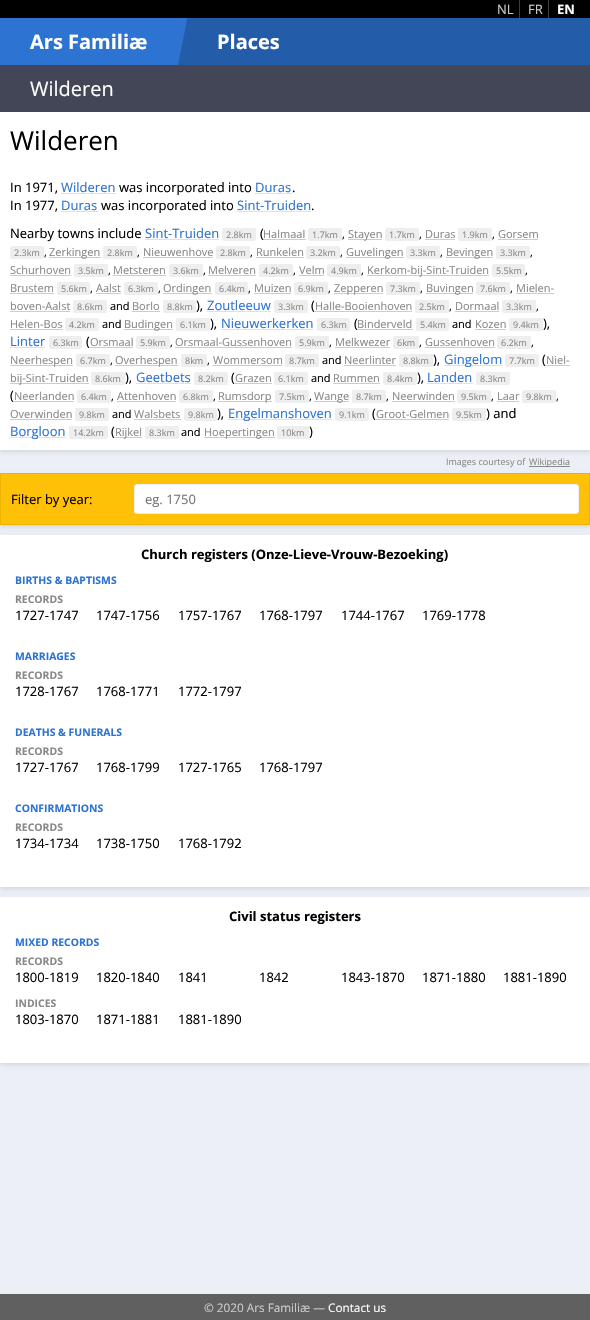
void draw(SkCanvas* canvas) {
	SkPaint fill;
	fill.setAntiAlias(true);
	auto makeFont = [&](const char* family, int weight, float size, bool italic = false) {
		SkFontStyle style(weight, SkFontStyle::kNormal_Width,
			italic ? SkFontStyle::kItalic_Slant : SkFontStyle::kUpright_Slant);
		SkFont result(fontMgr->matchFamilyStyle(family, style), size);
		result.setSubpixel(true);
		return result;
	};
	auto text = [&](const char* s, float x, float y, const SkFont& font) {
		canvas->drawString(s, x, y, font, fill);
	};
	auto box = [&](float l, float t, float r, float b) {
		canvas->drawRect(SkRect::MakeLTRB(l, t, r, b), fill);
	};
	auto roundBox = [&](float l, float t, float r, float b, float radius) {
		canvas->drawRoundRect(SkRect::MakeLTRB(l, t, r, b), radius, radius, fill);
	};
	canvas->clear(0xFFECEFF5);
	fill.setColor(0xFF424656);
	box(0, 65, 590, 112);
	fill.setColor(0xFF000000);
	box(0, 0, 590, 18);
	fill.setColor(0xFF3D3D3D);
	box(519, 0, 520, 18);
	box(548, 0, 549, 18);
	fill.setColor(0xFF235CA8);
	box(178, 20, 187, 65);
	fill.setColor(0xFF2C73D2);
	canvas->drawPath(SkPathBuilder().moveTo(0, 18).lineTo(0, 65).lineTo(178, 65).lineTo(187, 20).lineTo(187, 18).close().detach(), fill);
	fill.setColor(0xFF235CA8);
	box(187, 18, 590, 65);
	fill.setColor(0x1A000000);
	fill.setMaskFilter(SkMaskFilter::MakeBlur(kNormal_SkBlurStyle, 2));
	canvas->drawRect(SkRect::MakeLTRB(0, 114, 590, 452), fill);
	fill.setMaskFilter(nullptr);
	fill.setColor(0xFFFFFFFF);
	box(0, 112, 590, 450);
	fill.setColor(0xFFD4E3F6);
	box(61, 193, 116, 194);
	box(255, 193, 292, 194);
	box(61, 211, 98, 212);
	box(237, 211, 311, 212);
	box(145, 239, 219, 240);
	fill.setColor(0xFFEEEEEE);
	roundBox(222, 228, 256, 241, 2);
	fill.setColor(0xFFCCCCCC);
	box(263, 239, 306, 240);
	fill.setColor(0xFFEEEEEE);
	roundBox(308, 228, 342, 241, 2);
	fill.setColor(0xFFCCCCCC);
	box(348, 239, 382, 240);
	fill.setColor(0xFFEEEEEE);
	roundBox(385, 228, 419, 241, 2);
	fill.setColor(0xFFCCCCCC);
	box(425, 239, 455, 240);
	fill.setColor(0xFFEEEEEE);
	roundBox(458, 228, 492, 241, 2);
	fill.setColor(0xFFCCCCCC);
	box(498, 239, 538, 240);
	fill.setColor(0xFFEEEEEE);
	roundBox(10, 246, 44, 259, 2);
	fill.setColor(0xFFCCCCCC);
	box(49, 257, 101, 258);
	fill.setColor(0xFFEEEEEE);
	roundBox(103, 246, 137, 259, 2);
	fill.setColor(0xFFCCCCCC);
	box(143, 257, 213, 258);
	fill.setColor(0xFFEEEEEE);
	roundBox(216, 246, 250, 259, 2);
	fill.setColor(0xFFCCCCCC);
	box(256, 257, 304, 258);
	fill.setColor(0xFFEEEEEE);
	roundBox(306, 246, 340, 259, 2);
	fill.setColor(0xFFCCCCCC);
	box(346, 257, 404, 258);
	fill.setColor(0xFFEEEEEE);
	roundBox(406, 246, 440, 259, 2);
	fill.setColor(0xFFCCCCCC);
	box(446, 257, 493, 258);
	fill.setColor(0xFFEEEEEE);
	roundBox(496, 246, 530, 259, 2);
	fill.setColor(0xFFCCCCCC);
	box(10, 275, 71, 276);
	fill.setColor(0xFFEEEEEE);
	roundBox(74, 264, 108, 277, 2);
	fill.setColor(0xFFCCCCCC);
	box(113, 275, 166, 276);
	fill.setColor(0xFFEEEEEE);
	roundBox(169, 264, 203, 277, 2);
	fill.setColor(0xFFCCCCCC);
	box(208, 275, 256, 276);
	fill.setColor(0xFFEEEEEE);
	roundBox(259, 264, 293, 277, 2);
	fill.setColor(0xFFCCCCCC);
	box(299, 275, 324, 276);
	fill.setColor(0xFFEEEEEE);
	roundBox(327, 264, 361, 277, 2);
	fill.setColor(0xFFCCCCCC);
	box(367, 275, 489, 276);
	fill.setColor(0xFFEEEEEE);
	roundBox(492, 264, 525, 277, 2);
	fill.setColor(0xFFCCCCCC);
	box(10, 293, 54, 294);
	fill.setColor(0xFFEEEEEE);
	roundBox(57, 282, 90, 295, 2);
	fill.setColor(0xFFCCCCCC);
	box(96, 293, 121, 294);
	fill.setColor(0xFFEEEEEE);
	roundBox(124, 282, 158, 295, 2);
	fill.setColor(0xFFCCCCCC);
	box(163, 293, 212, 294);
	fill.setColor(0xFFEEEEEE);
	roundBox(215, 282, 248, 295, 2);
	fill.setColor(0xFFCCCCCC);
	box(254, 293, 291, 294);
	fill.setColor(0xFFEEEEEE);
	roundBox(294, 282, 328, 295, 2);
	fill.setColor(0xFFCCCCCC);
	box(334, 293, 383, 294);
	fill.setColor(0xFFEEEEEE);
	roundBox(386, 282, 420, 295, 2);
	fill.setColor(0xFFCCCCCC);
	box(426, 293, 473, 294);
	fill.setColor(0xFFEEEEEE);
	roundBox(476, 282, 510, 295, 2);
	fill.setColor(0xFFCCCCCC);
	box(516, 293, 554, 294);
	box(10, 311, 70, 312);
	fill.setColor(0xFFEEEEEE);
	roundBox(73, 300, 107, 313, 2);
	fill.setColor(0xFFCCCCCC);
	box(132, 311, 160, 312);
	fill.setColor(0xFFEEEEEE);
	roundBox(163, 300, 196, 313, 2);
	fill.setColor(0xFFD4E3F6);
	box(207, 311, 271, 312);
	fill.setColor(0xFFEEEEEE);
	roundBox(274, 300, 308, 313, 2);
	fill.setColor(0xFFCCCCCC);
	box(315, 311, 412, 312);
	fill.setColor(0xFFEEEEEE);
	roundBox(415, 300, 449, 313, 2);
	fill.setColor(0xFFCCCCCC);
	box(455, 311, 499, 312);
	fill.setColor(0xFFEEEEEE);
	roundBox(502, 300, 536, 313, 2);
	fill.setColor(0xFFCCCCCC);
	box(10, 329, 63, 330);
	fill.setColor(0xFFEEEEEE);
	roundBox(65, 318, 99, 331, 2);
	fill.setColor(0xFFCCCCCC);
	box(124, 329, 173, 330);
	fill.setColor(0xFFEEEEEE);
	roundBox(176, 318, 210, 331, 2);
	fill.setColor(0xFFD4E3F6);
	box(221, 329, 313, 330);
	fill.setColor(0xFFEEEEEE);
	roundBox(317, 318, 350, 331, 2);
	roundBox(416, 318, 449, 331, 2);
	fill.setColor(0xFFCCCCCC);
	box(475, 329, 506, 330);
	fill.setColor(0xFFEEEEEE);
	roundBox(509, 318, 543, 331, 2);
	fill.setColor(0xFFD4E3F6);
	box(10, 347, 45, 348);
	fill.setColor(0xFFEEEEEE);
	roundBox(49, 336, 82, 349, 2);
	fill.setColor(0xFFCCCCCC);
	box(90, 347, 133, 348);
	fill.setColor(0xFFEEEEEE);
	roundBox(136, 336, 170, 349, 2);
	fill.setColor(0xFFCCCCCC);
	box(175, 347, 292, 348);
	fill.setColor(0xFFEEEEEE);
	roundBox(295, 336, 329, 349, 2);
	fill.setColor(0xFFCCCCCC);
	box(335, 347, 390, 348);
	fill.setColor(0xFFEEEEEE);
	roundBox(393, 336, 419, 349, 2);
	fill.setColor(0xFFCCCCCC);
	box(425, 347, 495, 348);
	fill.setColor(0xFFEEEEEE);
	roundBox(497, 336, 531, 349, 2);
	fill.setColor(0xFFCCCCCC);
	box(10, 365, 73, 366);
	fill.setColor(0xFFEEEEEE);
	roundBox(76, 354, 110, 367, 2);
	fill.setColor(0xFFCCCCCC);
	box(115, 365, 178, 366);
	fill.setColor(0xFFEEEEEE);
	roundBox(181, 354, 207, 367, 2);
	fill.setColor(0xFFCCCCCC);
	box(213, 365, 282, 366);
	fill.setColor(0xFFEEEEEE);
	roundBox(285, 354, 319, 367, 2);
	fill.setColor(0xFFCCCCCC);
	box(344, 365, 396, 366);
	fill.setColor(0xFFEEEEEE);
	roundBox(399, 354, 433, 367, 2);
	fill.setColor(0xFFD4E3F6);
	box(444, 365, 502, 366);
	fill.setColor(0xFFEEEEEE);
	roundBox(505, 354, 539, 367, 2);
	fill.setColor(0xFFCCCCCC);
	box(546, 365, 570, 366);
	box(10, 383, 89, 384);
	fill.setColor(0xFFEEEEEE);
	roundBox(91, 372, 125, 385, 2);
	fill.setColor(0xFFD4E3F6);
	box(136, 383, 191, 384);
	fill.setColor(0xFFEEEEEE);
	roundBox(194, 372, 228, 385, 2);
	fill.setColor(0xFFCCCCCC);
	box(235, 383, 272, 384);
	fill.setColor(0xFFEEEEEE);
	roundBox(274, 372, 308, 385, 2);
	fill.setColor(0xFFCCCCCC);
	box(333, 383, 380, 384);
	fill.setColor(0xFFEEEEEE);
	roundBox(383, 372, 417, 385, 2);
	fill.setColor(0xFFD4E3F6);
	box(427, 383, 473, 384);
	fill.setColor(0xFFEEEEEE);
	roundBox(476, 372, 510, 385, 2);
	fill.setColor(0xFFCCCCCC);
	box(14, 401, 74, 402);
	fill.setColor(0xFFEEEEEE);
	roundBox(77, 390, 111, 403, 2);
	fill.setColor(0xFFCCCCCC);
	box(117, 401, 176, 402);
	fill.setColor(0xFFEEEEEE);
	roundBox(179, 390, 213, 403, 2);
	fill.setColor(0xFFCCCCCC);
	box(218, 401, 272, 402);
	fill.setColor(0xFFEEEEEE);
	roundBox(275, 390, 309, 403, 2);
	fill.setColor(0xFFCCCCCC);
	box(314, 401, 349, 402);
	fill.setColor(0xFFEEEEEE);
	roundBox(352, 390, 386, 403, 2);
	fill.setColor(0xFFCCCCCC);
	box(392, 401, 455, 402);
	fill.setColor(0xFFEEEEEE);
	roundBox(457, 390, 491, 403, 2);
	fill.setColor(0xFFCCCCCC);
	box(497, 401, 519, 402);
	fill.setColor(0xFFEEEEEE);
	roundBox(522, 390, 556, 403, 2);
	fill.setColor(0xFFCCCCCC);
	box(10, 419, 72, 420);
	fill.setColor(0xFFEEEEEE);
	roundBox(75, 408, 109, 421, 2);
	fill.setColor(0xFFCCCCCC);
	box(134, 419, 181, 420);
	fill.setColor(0xFFEEEEEE);
	roundBox(184, 408, 217, 421, 2);
	fill.setColor(0xFFD4E3F6);
	box(228, 419, 332, 420);
	fill.setColor(0xFFEEEEEE);
	roundBox(335, 408, 369, 421, 2);
	fill.setColor(0xFFCCCCCC);
	box(376, 419, 449, 420);
	fill.setColor(0xFFEEEEEE);
	roundBox(452, 408, 486, 421, 2);
	fill.setColor(0xFFD4E3F6);
	box(10, 437, 66, 438);
	fill.setColor(0xFFEEEEEE);
	roundBox(69, 426, 108, 439, 2);
	fill.setColor(0xFFCCCCCC);
	box(115, 437, 142, 438);
	fill.setColor(0xFFEEEEEE);
	roundBox(145, 426, 179, 439, 2);
	fill.setColor(0xFFCCCCCC);
	box(204, 437, 275, 438);
	fill.setColor(0xFFEEEEEE);
	roundBox(277, 426, 309, 439, 2);
	fill.setColor(0xFF888888);
	box(529, 466, 570, 467);
	fill.setColor(0x1A000000);
	fill.setMaskFilter(SkMaskFilter::MakeBlur(kNormal_SkBlurStyle, 2));
	canvas->drawRect(SkRect::MakeLTRB(0, 475, 590, 527), fill);
	fill.setMaskFilter(nullptr);
	fill.setColor(0xFFFFC107);
	canvas->drawRect(SkRect::MakeLTRB(0.5f, 473.5f, 589.5f, 524.5f), fill);
	fill.setStyle(SkPaint::kStroke_Style);
	fill.setStrokeWidth(1);
	fill.setColor(0xFFEFB300);
	canvas->drawRect(SkRect::MakeLTRB(0.5f, 473.5f, 589.5f, 524.5f), fill);
	fill.setStyle(SkPaint::kFill_Style);
	fill.setColor(0xFFFFFFFF);
	canvas->drawRoundRect(SkRect::MakeLTRB(134.5f, 484.5f, 578.5f, 513.5f), 2.5f, 2.5f, fill);
	fill.setStyle(SkPaint::kStroke_Style);
	fill.setColor(0xFFEEEEEE);
	canvas->drawRoundRect(SkRect::MakeLTRB(134.5f, 484.5f, 578.5f, 513.5f), 2.5f, 2.5f, fill);
	fill.setStyle(SkPaint::kFill_Style);
	fill.setColor(0x1A000000);
	fill.setMaskFilter(SkMaskFilter::MakeBlur(kNormal_SkBlurStyle, 2));
	canvas->drawRect(SkRect::MakeLTRB(0, 537, 590, 889), fill);
	fill.setMaskFilter(nullptr);
	fill.setColor(0xFFFFFFFF);
	box(0, 535, 590, 887);
	fill.setColor(0x1A000000);
	fill.setMaskFilter(SkMaskFilter::MakeBlur(kNormal_SkBlurStyle, 2));
	canvas->drawRect(SkRect::MakeLTRB(0, 899, 590, 1065), fill);
	fill.setMaskFilter(nullptr);
	fill.setColor(0xFFFFFFFF);
	box(0, 897, 590, 1063);
	fill.setColor(0xFF606060);
	box(0, 1294, 590, 1320);
	auto font1 = makeFont("Open Sans", 400, 13);
	fill.setColor(0xFFCCCCCC);
	text("NL", 497, 14, font1);
	text("FR", 528, 14, font1);
	auto font2 = makeFont("Open Sans", 700, 13);
	fill.setColor(0xFFFFFFFF);
	text("EN", 557, 14, font2);
	auto font3 = makeFont("Open Sans", 700, 20);
	text("Ars Familiæ", 30, 49, font3);
	text("Places", 217, 49, font3);
	auto font4 = makeFont("Open Sans", 400, 20);
	text("Wilderen", 30, 96, font4);
	auto font5 = makeFont("Open Sans", 400, 26);
	fill.setColor(0xFF000000);
	text("Wilderen", 10, 150, font5);
	text("In 1971,", 10, 192, font1);
	fill.setColor(0xFF2C73D2);
	text("Wilderen", 61, 192, font1);
	fill.setColor(0xFF000000);
	text("was incorporated into", 119, 192, font1);
	fill.setColor(0xFF2C73D2);
	text("Duras", 255, 192, font1);
	fill.setColor(0xFF000000);
	text(".", 292, 192, font1);
	text("In 1977,", 10, 210, font1);
	fill.setColor(0xFF2C73D2);
	text("Duras", 61, 210, font1);
	fill.setColor(0xFF000000);
	text("was incorporated into", 101, 210, font1);
	fill.setColor(0xFF2C73D2);
	text("Sint-Truiden", 237, 210, font1);
	fill.setColor(0xFF000000);
	text(".", 311, 210, font1);
	text("Nearby towns include", 10, 238, font1);
	fill.setColor(0xFF2C73D2);
	text("Sint-Truiden", 145, 238, font1);
	auto font6 = makeFont("Open Sans", 400, 9);
	fill.setColor(0xFF888888);
	text("2.8km", 226, 238, font6);
	fill.setColor(0xFF000000);
	text("(", 260, 238, font1);
	auto font7 = makeFont("Open Sans", 400, 11);
	fill.setColor(0xFF888888);
	text("Halmaal", 263, 238, font7);
	text("1.7km", 312, 238, font6);
	fill.setColor(0xFF000000);
	text(",", 342, 238, font7);
	fill.setColor(0xFF888888);
	text("Stayen", 348, 238, font7);
	text("1.7km", 389, 238, font6);
	fill.setColor(0xFF000000);
	text(",", 419, 238, font7);
	fill.setColor(0xFF888888);
	text("Duras", 425, 238, font7);
	text("1.9km", 462, 238, font6);
	fill.setColor(0xFF000000);
	text(",", 492, 238, font7);
	fill.setColor(0xFF888888);
	text("Gorsem", 498, 238, font7);
	text("2.3km", 14, 256, font6);
	fill.setColor(0xFF000000);
	text(",", 44, 256, font7);
	fill.setColor(0xFF888888);
	text("Zerkingen", 49, 256, font7);
	text("2.8km", 107, 256, font6);
	fill.setColor(0xFF000000);
	text(",", 137, 256, font7);
	fill.setColor(0xFF888888);
	text("Nieuwenhove", 143, 256, font7);
	text("2.8km", 220, 256, font6);
	fill.setColor(0xFF000000);
	text(",", 250, 256, font7);
	fill.setColor(0xFF888888);
	text("Runkelen", 256, 256, font7);
	text("3.2km", 310, 256, font6);
	fill.setColor(0xFF000000);
	text(",", 340, 256, font7);
	fill.setColor(0xFF888888);
	text("Guvelingen", 346, 256, font7);
	text("3.3km", 410, 256, font6);
	fill.setColor(0xFF000000);
	text(",", 440, 256, font7);
	fill.setColor(0xFF888888);
	text("Bevingen", 446, 256, font7);
	text("3.3km", 500, 256, font6);
	fill.setColor(0xFF000000);
	text(",", 530, 256, font7);
	fill.setColor(0xFF888888);
	text("Schurhoven", 10, 274, font7);
	text("3.5km", 78, 274, font6);
	fill.setColor(0xFF000000);
	text(",", 108, 274, font7);
	fill.setColor(0xFF888888);
	text("Metsteren", 113, 274, font7);
	text("3.6km", 173, 274, font6);
	fill.setColor(0xFF000000);
	text(",", 203, 274, font7);
	fill.setColor(0xFF888888);
	text("Melveren", 208, 274, font7);
	text("4.2km", 263, 274, font6);
	fill.setColor(0xFF000000);
	text(",", 293, 274, font7);
	fill.setColor(0xFF888888);
	text("Velm", 299, 274, font7);
	text("4.9km", 331, 274, font6);
	fill.setColor(0xFF000000);
	text(",", 361, 274, font7);
	fill.setColor(0xFF888888);
	text("Kerkom-bij-Sint-Truiden", 367, 274, font7);
	text("5.5km", 496, 274, font6);
	fill.setColor(0xFF000000);
	text(",", 525, 274, font7);
	fill.setColor(0xFF888888);
	text("Brustem", 10, 292, font7);
	text("5.6km", 61, 292, font6);
	fill.setColor(0xFF000000);
	text(",", 90, 292, font7);
	fill.setColor(0xFF888888);
	text("Aalst", 96, 292, font7);
	text("6.3km", 128, 292, font6);
	fill.setColor(0xFF000000);
	text(",", 158, 292, font7);
	fill.setColor(0xFF888888);
	text("Ordingen", 163, 292, font7);
	text("6.4km", 219, 292, font6);
	fill.setColor(0xFF000000);
	text(",", 248, 292, font7);
	fill.setColor(0xFF888888);
	text("Muizen", 254, 292, font7);
	text("6.9km", 298, 292, font6);
	fill.setColor(0xFF000000);
	text(",", 328, 292, font7);
	fill.setColor(0xFF888888);
	text("Zepperen", 334, 292, font7);
	text("7.3km", 390, 292, font6);
	fill.setColor(0xFF000000);
	text(",", 420, 292, font7);
	fill.setColor(0xFF888888);
	text("Buvingen", 426, 292, font7);
	text("7.6km", 480, 292, font6);
	fill.setColor(0xFF000000);
	text(",", 510, 292, font7);
	fill.setColor(0xFF888888);
	text("Mielen-", 516, 292, font7);
	text("boven-Aalst", 10, 310, font7);
	text("8.6km", 77, 310, font6);
	fill.setColor(0xFF000000);
	text("and", 110, 310, font7);
	fill.setColor(0xFF888888);
	text("Borlo", 132, 310, font7);
	text("8.8km", 167, 310, font6);
	fill.setColor(0xFF000000);
	text("),", 196, 310, font1);
	fill.setColor(0xFF2C73D2);
	text("Zoutleeuw", 207, 310, font1);
	fill.setColor(0xFF888888);
	text("3.3km", 278, 310, font6);
	fill.setColor(0xFF000000);
	text("(", 311, 310, font1);
	fill.setColor(0xFF888888);
	text("Halle-Booienhoven", 315, 310, font7);
	text("2.5km", 419, 310, font6);
	fill.setColor(0xFF000000);
	text(",", 449, 310, font7);
	fill.setColor(0xFF888888);
	text("Dormaal", 455, 310, font7);
	text("3.3km", 506, 310, font6);
	fill.setColor(0xFF000000);
	text(",", 536, 310, font7);
	fill.setColor(0xFF888888);
	text("Helen-Bos", 10, 328, font7);
	text("4.2km", 69, 328, font6);
	fill.setColor(0xFF000000);
	text("and", 102, 328, font7);
	fill.setColor(0xFF888888);
	text("Budingen", 124, 328, font7);
	text("6.1km", 180, 328, font6);
	fill.setColor(0xFF000000);
	text("),", 210, 328, font1);
	fill.setColor(0xFF2C73D2);
	text("Nieuwerkerken", 221, 328, font1);
	fill.setColor(0xFF888888);
	text("6.3km", 321, 328, font6);
	fill.setColor(0xFF000000);
	text("(", 354, 328, font1);
	fill.setColor(0xFF888888);
	text("Binderveld", 357, 328, font7);
	fill.setColor(0xFFCCCCCC);
	box(357, 329, 413, 330);
	fill.setColor(0xFF888888);
	text("5.4km", 420, 328, font6);
	fill.setColor(0xFF000000);
	text("and", 452, 328, font7);
	fill.setColor(0xFF888888);
	text("Kozen", 475, 328, font7);
	text("9.4km", 513, 328, font6);
	fill.setColor(0xFF000000);
	text("),", 543, 328, font1);
	fill.setColor(0xFF2C73D2);
	text("Linter", 10, 346, font1);
	fill.setColor(0xFF888888);
	text("6.3km", 53, 346, font6);
	fill.setColor(0xFF000000);
	text("(", 86, 346, font1);
	fill.setColor(0xFF888888);
	text("Orsmaal", 90, 346, font7);
	text("5.9km", 140, 346, font6);
	fill.setColor(0xFF000000);
	text(",", 170, 346, font7);
	fill.setColor(0xFF888888);
	text("Orsmaal-Gussenhoven", 175, 346, font7);
	text("5.9km", 299, 346, font6);
	fill.setColor(0xFF000000);
	text(",", 329, 346, font7);
	fill.setColor(0xFF888888);
	text("Melkwezer", 335, 346, font7);
	text("6km", 397, 346, font6);
	fill.setColor(0xFF000000);
	text(",", 419, 346, font7);
	fill.setColor(0xFF888888);
	text("Gussenhoven", 425, 346, font7);
	text("6.2km", 501, 346, font6);
	fill.setColor(0xFF000000);
	text(",", 531, 346, font7);
	fill.setColor(0xFF888888);
	text("Neerhespen", 10, 364, font7);
	text("6.7km", 80, 364, font6);
	fill.setColor(0xFF000000);
	text(",", 110, 364, font7);
	fill.setColor(0xFF888888);
	text("Overhespen", 115, 364, font7);
	text("8km", 185, 364, font6);
	fill.setColor(0xFF000000);
	text(",", 207, 364, font7);
	fill.setColor(0xFF888888);
	text("Wommersom", 213, 364, font7);
	text("8.7km", 289, 364, font6);
	fill.setColor(0xFF000000);
	text("and", 322, 364, font7);
	fill.setColor(0xFF888888);
	text("Neerlinter", 344, 364, font7);
	text("8.8km", 403, 364, font6);
	fill.setColor(0xFF000000);
	text("),", 433, 364, font1);
	fill.setColor(0xFF2C73D2);
	text("Gingelom", 444, 364, font1);
	fill.setColor(0xFF888888);
	text("7.7km", 509, 364, font6);
	fill.setColor(0xFF000000);
	text("(", 542, 364, font1);
	fill.setColor(0xFF888888);
	text("Niel-", 546, 364, font7);
	text("bij-Sint-Truiden", 10, 382, font7);
	text("8.6km", 95, 382, font6);
	fill.setColor(0xFF000000);
	text("),", 125, 382, font1);
	fill.setColor(0xFF2C73D2);
	text("Geetbets", 136, 382, font1);
	fill.setColor(0xFF888888);
	text("8.2km", 198, 382, font6);
	fill.setColor(0xFF000000);
	text("(", 231, 382, font1);
	fill.setColor(0xFF888888);
	text("Grazen", 235, 382, font7);
	text("6.1km", 278, 382, font6);
	fill.setColor(0xFF000000);
	text("and", 311, 382, font7);
	fill.setColor(0xFF888888);
	text("Rummen", 333, 382, font7);
	text("8.4km", 387, 382, font6);
	fill.setColor(0xFF000000);
	text("),", 417, 382, font1);
	fill.setColor(0xFF2C73D2);
	text("Landen", 427, 382, font1);
	fill.setColor(0xFF888888);
	text("8.3km", 480, 382, font6);
	fill.setColor(0xFF000000);
	text("(", 10, 400, font1);
	fill.setColor(0xFF888888);
	text("Neerlanden", 14, 400, font7);
	text("6.4km", 81, 400, font6);
	fill.setColor(0xFF000000);
	text(",", 111, 400, font7);
	fill.setColor(0xFF888888);
	text("Attenhoven", 117, 400, font7);
	text("6.8km", 183, 400, font6);
	fill.setColor(0xFF000000);
	text(",", 213, 400, font7);
	fill.setColor(0xFF888888);
	text("Rumsdorp", 218, 400, font7);
	text("7.5km", 279, 400, font6);
	fill.setColor(0xFF000000);
	text(",", 309, 400, font7);
	fill.setColor(0xFF888888);
	text("Wange", 314, 400, font7);
	text("8.7km", 356, 400, font6);
	fill.setColor(0xFF000000);
	text(",", 386, 400, font7);
	fill.setColor(0xFF888888);
	text("Neerwinden", 392, 400, font7);
	text("9.5km", 461, 400, font6);
	fill.setColor(0xFF000000);
	text(",", 491, 400, font7);
	fill.setColor(0xFF888888);
	text("Laar", 497, 400, font7);
	text("9.8km", 526, 400, font6);
	fill.setColor(0xFF000000);
	text(",", 556, 400, font7);
	fill.setColor(0xFF888888);
	text("Overwinden", 10, 418, font7);
	text("9.8km", 79, 418, font6);
	fill.setColor(0xFF000000);
	text("and", 112, 418, font7);
	fill.setColor(0xFF888888);
	text("Walsbets", 134, 418, font7);
	text("9.8km", 188, 418, font6);
	fill.setColor(0xFF000000);
	text("),", 217, 418, font1);
	fill.setColor(0xFF2C73D2);
	text("Engelmanshoven", 228, 418, font1);
	fill.setColor(0xFF888888);
	text("9.1km", 339, 418, font6);
	fill.setColor(0xFF000000);
	text("(", 372, 418, font1);
	fill.setColor(0xFF888888);
	text("Groot-Gelmen", 376, 418, font7);
	text("9.5km", 456, 418, font6);
	fill.setColor(0xFF000000);
	text(") and", 486, 418, font1);
	fill.setColor(0xFF2C73D2);
	text("Borgloon", 10, 436, font1);
	fill.setColor(0xFF888888);
	text("14.2km", 73, 436, font6);
	fill.setColor(0xFF000000);
	text("(", 111, 436, font1);
	fill.setColor(0xFF888888);
	text("Rijkel", 115, 436, font7);
	text("8.3km", 149, 436, font6);
	fill.setColor(0xFF000000);
	text("and", 181, 436, font7);
	fill.setColor(0xFF888888);
	text("Hoepertingen", 204, 436, font7);
	text("10km", 281, 436, font6);
	fill.setColor(0xFF000000);
	text(")", 309, 436, font1);
	fill.setColor(0xFF888888);
	text("Images courtesy of", 446, 465, font6);
	text("Wikipedia", 529, 465, font6);
	fill.setColor(0xFF000000);
	text("Filter by year:", 11, 504, font1);
	fill.setColor(0xFF757575);
	text("eg. 1750", 145, 504, font1);
	fill.setColor(0xFF000000);
	text("Church registers (Onze-Lieve-Vrouw-Bezoeking)", 141, 559, font2);
	auto font8 = makeFont("Open Sans", 700, 10.4f);
	fill.setColor(0xFF2C73D2);
	text("BIRTHS & BAPTISMS", 15, 584, font8);
	fill.setColor(0xFF888888);
	text("RECORDS", 15, 603, font8);
	fill.setColor(0xFF000000);
	text("1727-1747", 15, 620, font1);
	text("1747-1756", 96, 620, font1);
	text("1757-1767", 178, 620, font1);
	text("1768-1797", 259, 620, font1);
	text("1744-1767", 341, 620, font1);
	text("1769-1778", 422, 620, font1);
	fill.setColor(0xFF2C73D2);
	text("MARRIAGES", 15, 660, font8);
	fill.setColor(0xFF888888);
	text("RECORDS", 15, 679, font8);
	fill.setColor(0xFF000000);
	text("1728-1767", 15, 696, font1);
	text("1768-1771", 96, 696, font1);
	text("1772-1797", 178, 696, font1);
	fill.setColor(0xFF2C73D2);
	text("DEATHS & FUNERALS", 15, 736, font8);
	fill.setColor(0xFF888888);
	text("RECORDS", 15, 755, font8);
	fill.setColor(0xFF000000);
	text("1727-1767", 15, 772, font1);
	text("1768-1799", 96, 772, font1);
	text("1727-1765", 178, 772, font1);
	text("1768-1797", 259, 772, font1);
	fill.setColor(0xFF2C73D2);
	text("CONFIRMATIONS", 15, 812, font8);
	fill.setColor(0xFF888888);
	text("RECORDS", 15, 831, font8);
	fill.setColor(0xFF000000);
	text("1734-1734", 15, 848, font1);
	text("1738-1750", 96, 848, font1);
	text("1768-1792", 178, 848, font1);
	text("Civil status registers", 229, 921, font2);
	fill.setColor(0xFF2C73D2);
	text("MIXED RECORDS", 15, 946, font8);
	fill.setColor(0xFF888888);
	text("RECORDS", 15, 965, font8);
	fill.setColor(0xFF000000);
	text("1800-1819", 15, 982, font1);
	text("1820-1840", 96, 982, font1);
	text("1841", 178, 982, font1);
	text("1842", 259, 982, font1);
	text("1843-1870", 341, 982, font1);
	text("1871-1880", 422, 982, font1);
	text("1881-1890", 503, 982, font1);
	fill.setColor(0xFF888888);
	text("INDICES", 15, 1007, font8);
	fill.setColor(0xFF000000);
	text("1803-1870", 15, 1024, font1);
	text("1871-1881", 96, 1024, font1);
	text("1881-1890", 178, 1024, font1);
	auto font9 = makeFont("Open Sans", 400, 11.75f);
	fill.setColor(0xFFCCCCCC);
	text("© 2020 Ars Familiæ —", 204, 1312, font9);
	fill.setColor(0xFFFFFFFF);
	text("Contact us", 328, 1312, font9);
}
